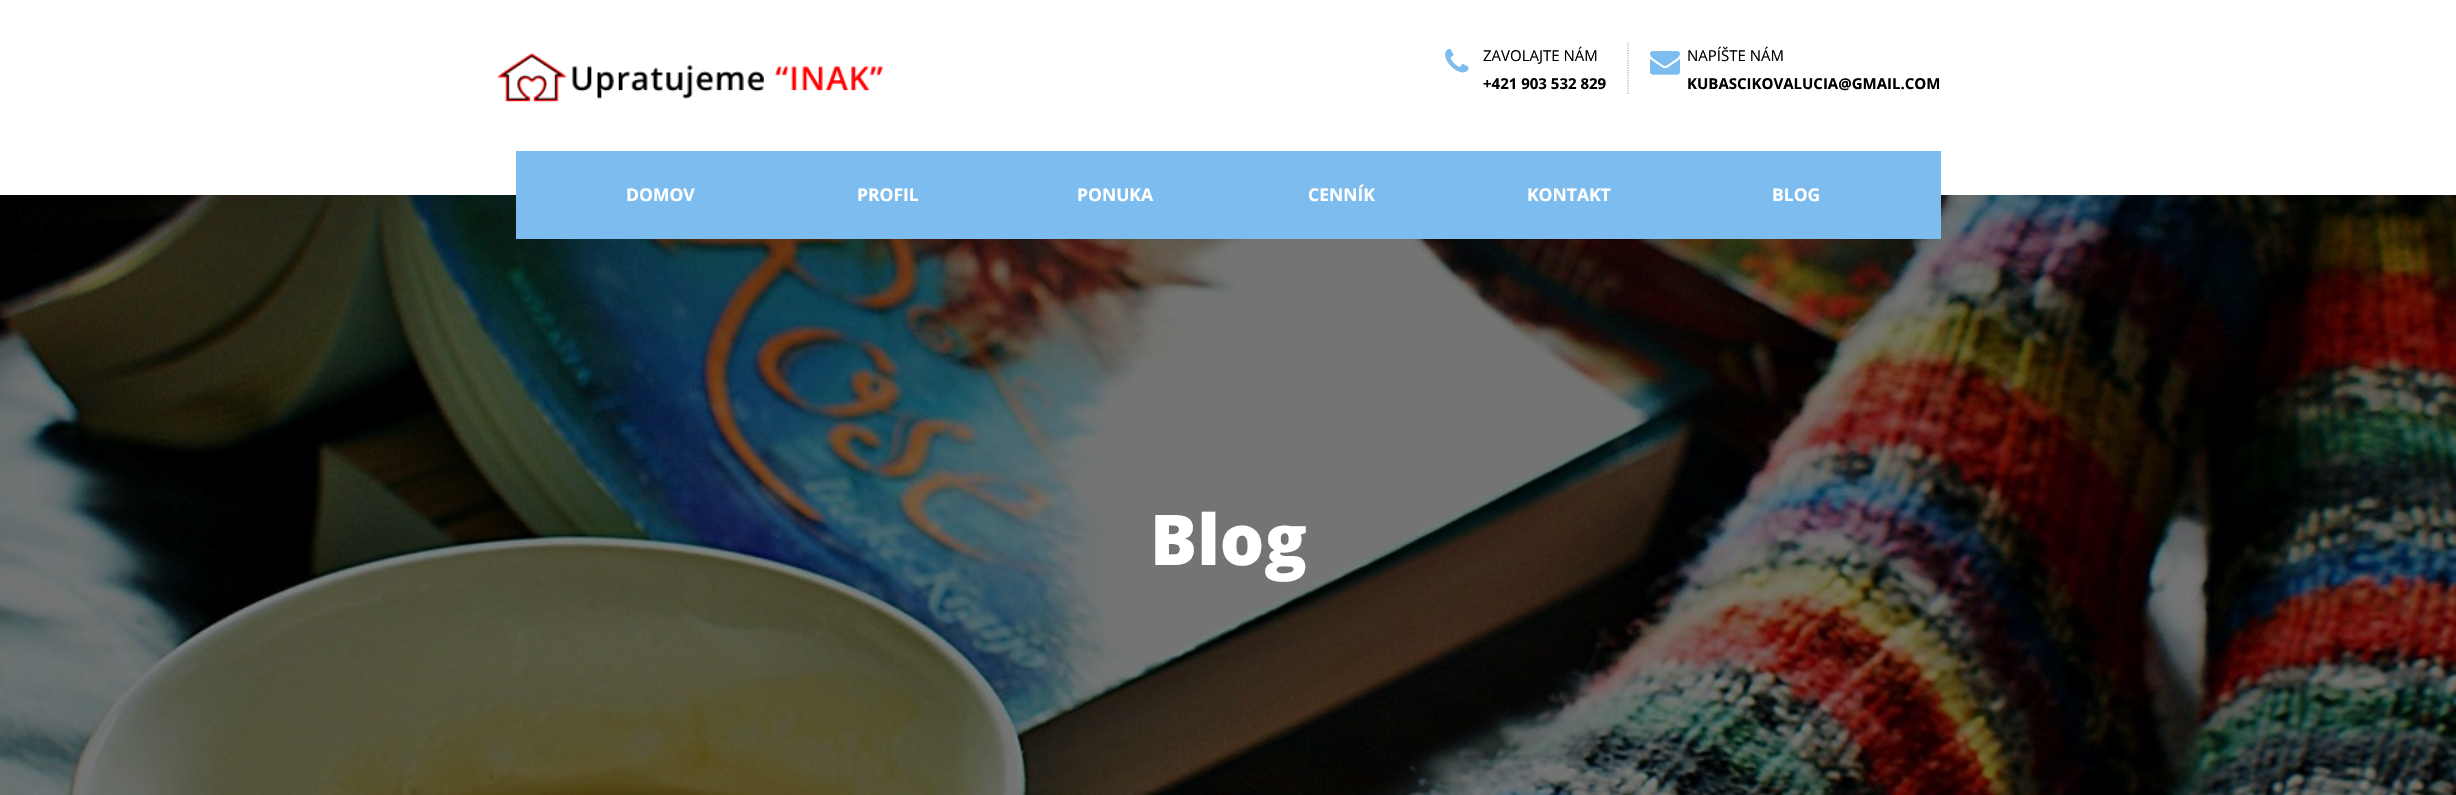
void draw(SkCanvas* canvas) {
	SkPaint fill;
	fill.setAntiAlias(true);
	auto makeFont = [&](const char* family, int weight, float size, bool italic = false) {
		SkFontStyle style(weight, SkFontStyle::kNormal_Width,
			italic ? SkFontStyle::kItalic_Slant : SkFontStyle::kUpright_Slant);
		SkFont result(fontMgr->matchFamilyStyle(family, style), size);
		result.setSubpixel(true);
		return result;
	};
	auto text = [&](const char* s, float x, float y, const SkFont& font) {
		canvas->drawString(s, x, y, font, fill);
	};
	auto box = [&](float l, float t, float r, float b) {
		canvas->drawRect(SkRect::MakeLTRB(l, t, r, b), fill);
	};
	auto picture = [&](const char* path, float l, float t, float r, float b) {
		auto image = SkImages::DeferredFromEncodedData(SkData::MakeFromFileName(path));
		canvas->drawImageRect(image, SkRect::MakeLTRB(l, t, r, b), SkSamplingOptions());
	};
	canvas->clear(0xFFFFFFFF);
	picture("image0.png", 497, 53, 883, 102);
	fill.setStyle(SkPaint::kStroke_Style);
	fill.setStrokeWidth(1.2f);
	fill.setColor(0xFFB1B1B1);
	fill.setPathEffect(SkDashPathEffect::Make({{1.25f, 1.25f}}, 0));
	canvas->drawPath(SkPathBuilder().moveTo(1628, 42.5f).lineTo(1628, 94).detach(), fill);
	fill.setPathEffect(nullptr);
	picture("image1.png", 1445, 49, 1469, 73);
	picture("image2.png", 1650, 51, 1680, 75);
	picture("image3.png", 0, 195, 2456, 795);
	fill.setStyle(SkPaint::kFill_Style);
	fill.setColor(0xFF7CBCEF);
	box(516, 151, 1941, 239);
	auto font1 = makeFont("Open Sans", 400, 15);
	fill.setColor(0xFF000000);
	text("ZAVOLAJTE NÁM", 1483, 61, font1);
	auto font2 = makeFont("Open Sans", 700, 15);
	text("+421 903 532 829", 1483, 89, font2);
	text("NAPÍŠTE NÁM", 1687, 61, font1);
	text("KUBASCIKOVALUCIA@GMAIL.COM", 1687, 89, font2);
	auto font3 = makeFont("Open Sans", 700, 17.5f);
	fill.setColor(0xFFFFFFFF);
	text("DOMOV", 626, 201, font3);
	text("PROFIL", 857, 201, font3);
	text("PONUKA", 1077, 201, font3);
	text("CENNÍK", 1308, 201, font3);
	text("KONTAKT", 1527, 201, font3);
	text("BLOG", 1772, 201, font3);
	auto font4 = makeFont("Open Sans", 800, 70);
	text("Blog", 1150, 565, font4);
}
